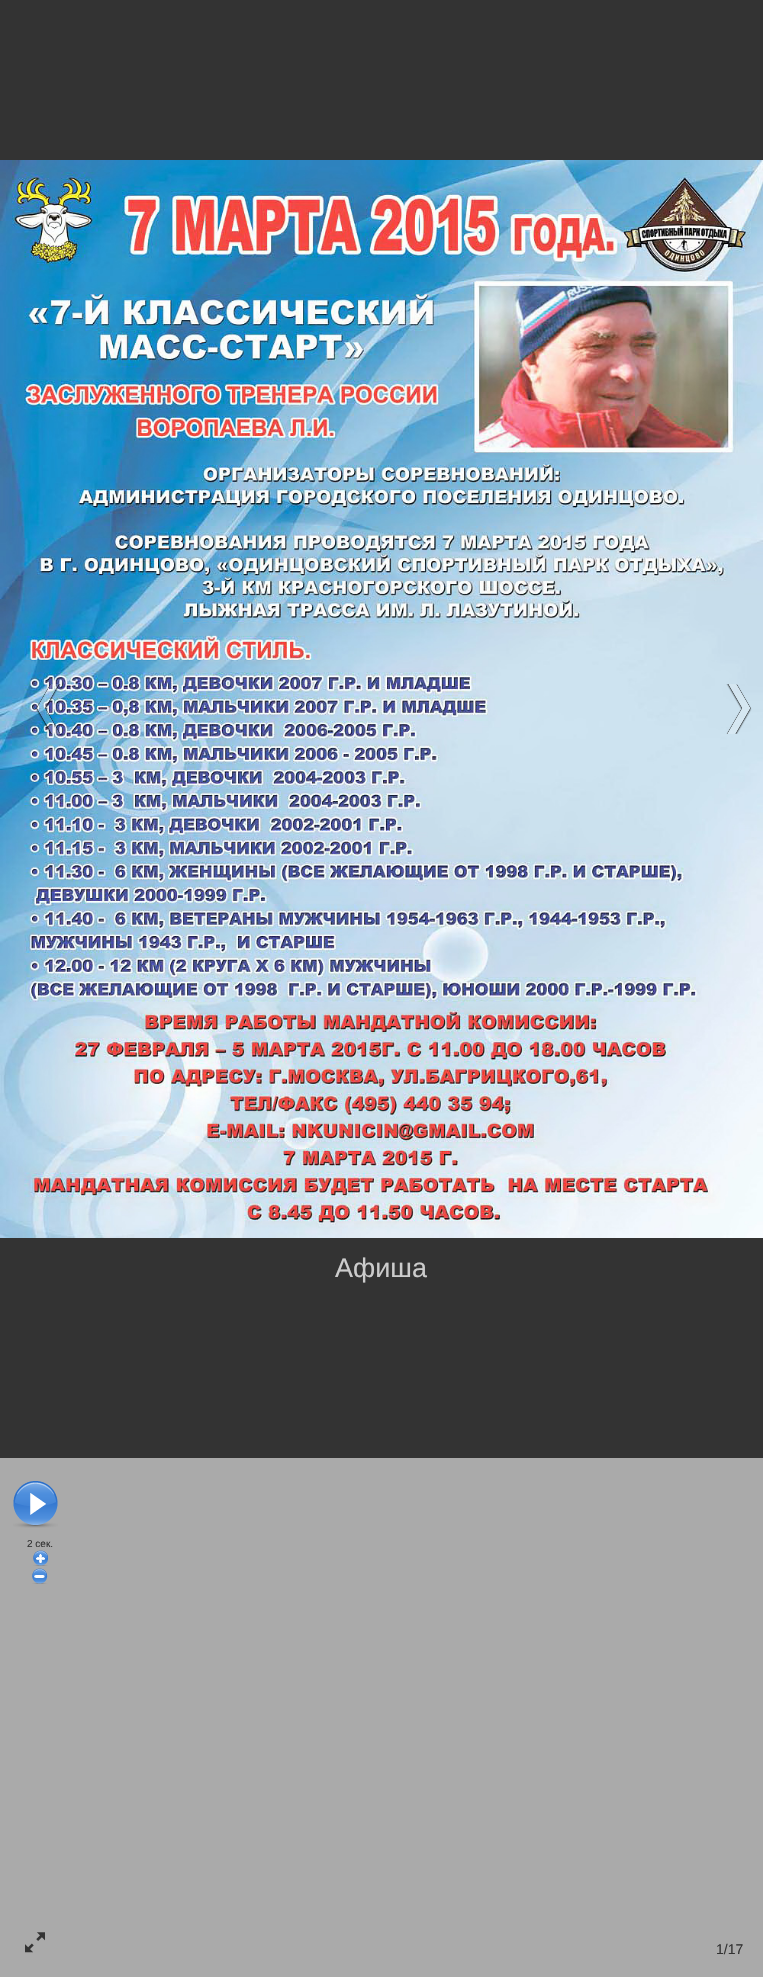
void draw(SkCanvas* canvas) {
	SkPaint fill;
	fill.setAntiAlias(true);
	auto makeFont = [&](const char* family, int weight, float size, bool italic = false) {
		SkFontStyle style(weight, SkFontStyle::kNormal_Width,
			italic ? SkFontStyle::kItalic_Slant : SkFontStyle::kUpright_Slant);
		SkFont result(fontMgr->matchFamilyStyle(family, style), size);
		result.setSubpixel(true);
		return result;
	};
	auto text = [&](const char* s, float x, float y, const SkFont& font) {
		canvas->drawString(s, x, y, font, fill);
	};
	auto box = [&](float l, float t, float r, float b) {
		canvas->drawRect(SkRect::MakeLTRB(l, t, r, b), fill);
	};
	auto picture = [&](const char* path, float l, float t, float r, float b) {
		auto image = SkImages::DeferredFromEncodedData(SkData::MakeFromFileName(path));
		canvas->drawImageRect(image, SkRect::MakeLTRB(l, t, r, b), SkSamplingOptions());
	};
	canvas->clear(0xFF333333);
	picture("image0.png", 0, 160, 763, 1238);
	picture("image1.png", 36, 684, 61, 734);
	picture("image2.png", 726, 684, 752, 734);
	fill.setColor(0xFFAAAAAA);
	box(0, 1458, 763, 1977);
	picture("image3.png", 13, 1481, 58, 1528);
	picture("image4.png", 33, 1550, 48, 1566);
	picture("image5.png", 32, 1568, 48, 1584);
	picture("image6.png", 25, 1932, 45, 1953);
	auto font1 = makeFont("Liberation Sans", 400, 27);
	fill.setColor(0xFFCCCCCC);
	text("Афиша", 335, 1277, font1);
	auto font2 = makeFont("Liberation Sans", 400, 10);
	fill.setColor(0xFF333333);
	text("2 сек.", 27, 1547, font2);
	auto font3 = makeFont("Liberation Sans", 400, 14);
	text("1/17", 716, 1954, font3);
}
